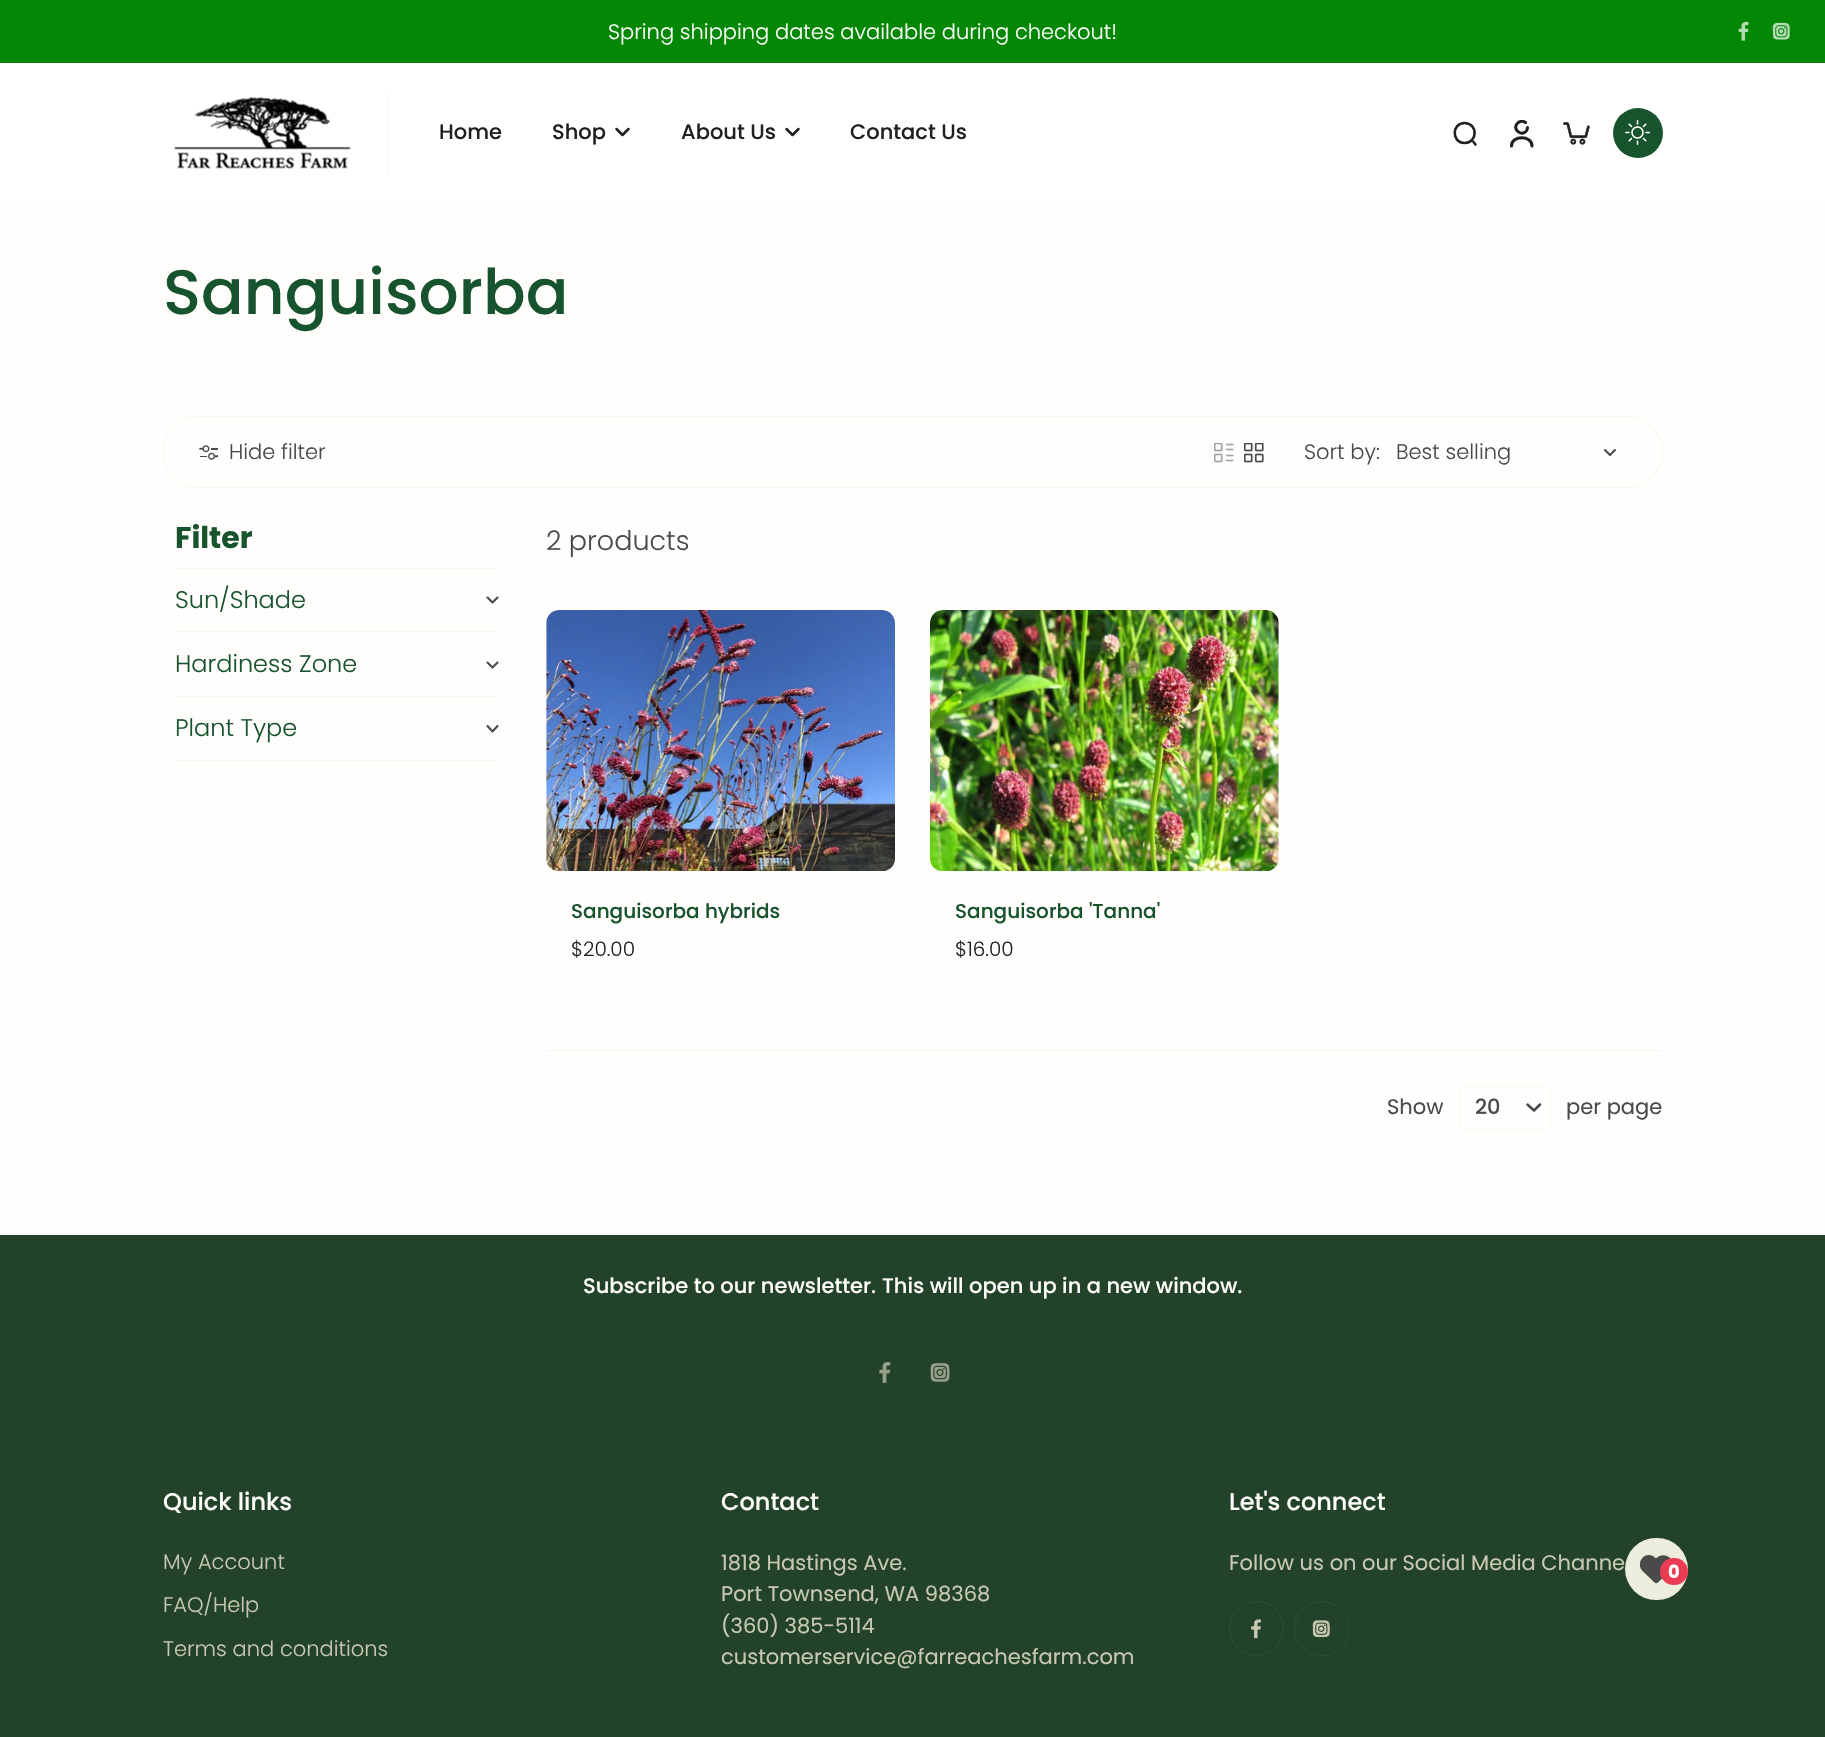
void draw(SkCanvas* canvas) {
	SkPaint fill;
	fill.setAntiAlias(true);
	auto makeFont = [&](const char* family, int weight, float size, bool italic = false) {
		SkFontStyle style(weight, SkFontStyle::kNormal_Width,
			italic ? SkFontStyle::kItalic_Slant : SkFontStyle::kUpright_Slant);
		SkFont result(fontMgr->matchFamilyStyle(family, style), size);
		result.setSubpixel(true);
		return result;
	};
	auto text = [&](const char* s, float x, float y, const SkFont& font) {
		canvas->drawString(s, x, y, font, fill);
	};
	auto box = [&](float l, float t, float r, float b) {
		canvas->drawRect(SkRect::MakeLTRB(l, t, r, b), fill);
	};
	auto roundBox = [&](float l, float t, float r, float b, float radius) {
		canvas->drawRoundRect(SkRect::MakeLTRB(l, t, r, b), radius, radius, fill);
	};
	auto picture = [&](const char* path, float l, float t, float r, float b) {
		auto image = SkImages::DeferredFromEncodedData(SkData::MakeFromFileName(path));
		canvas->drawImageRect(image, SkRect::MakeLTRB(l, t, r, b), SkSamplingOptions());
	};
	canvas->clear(0xFFFFFEFC);
	fill.setColor(0xFF038704);
	box(0, 0, 1825, 63);
	picture("image0.png", 1738, 21, 1749, 41);
	picture("image1.png", 1772, 22, 1790, 40);
	fill.setColor(0xFFFFFFFF);
	box(0, 63, 1825, 203);
	fill.setColor(0xFFF6F6F0);
	box(388, 93, 389, 173);
	picture("image2.png", 174, 97, 351, 169);
	fill.setStyle(SkPaint::kStroke_Style);
	fill.setStrokeWidth(2.5f);
	fill.setStrokeCap(SkPaint::kRound_Cap);
	fill.setStrokeJoin(SkPaint::kRound_Join);
	fill.setColor(0xFF212020);
	canvas->drawPath(SkPathBuilder().moveTo(616.5f, 129).lineTo(622.5f, 135).lineTo(628.5f, 129).detach(), fill);
	canvas->drawPath(SkPathBuilder().moveTo(786.5f, 129).lineTo(792.5f, 135).lineTo(798.5f, 129).detach(), fill);
	fill.setStrokeWidth(2.6f);
	canvas->drawPath(SkPathBuilder().moveTo(1464.5f, 143).cubicTo(1478, 143, 1478, 123, 1464.5f, 123).cubicTo(1451.5f, 123, 1451.5f, 143, 1464.5f, 143).close().moveTo(1475.5f, 144.5f).lineTo(1473.5f, 142).detach(), fill);
	canvas->save();
	canvas->clipRect(SkRect::MakeLTRB(1508, 120, 1535, 148));
	fill.setStrokeWidth(3.1f);
	canvas->drawPath(SkPathBuilder().moveTo(1525.5f, 122.5f).cubicTo(1519, 118, 1511.5f, 127.5f, 1518.5f, 132).cubicTo(1520, 133, 1521.5f, 133.5f, 1523, 133).cubicTo(1525.5f, 132.5f, 1527.5f, 130, 1527.5f, 127.5f).detach(), fill);
	canvas->restore();
	canvas->drawPath(SkPathBuilder().moveTo(1532, 146).cubicTo(1532, 135, 1511.5f, 135, 1511.5f, 146).detach(), fill);
	picture("image3.png", 1563, 122, 1590, 145);
	fill.setStyle(SkPaint::kFill_Style);
	fill.setColor(0xFF17532D);
	canvas->drawCircle(1638, 133, 25, fill);
	picture("image4.png", 1625, 120, 1650, 145);
	fill.setStyle(SkPaint::kStroke_Style);
	fill.setStrokeWidth(1);
	fill.setStrokeCap(SkPaint::kButt_Cap);
	fill.setStrokeJoin(SkPaint::kMiter_Join);
	fill.setColor(0xFFF6F6F0);
	canvas->drawRoundRect(SkRect::MakeLTRB(163.5f, 416.5f, 1662.5f, 487.5f), 35.5f, 35.5f, fill);
	picture("image5.png", 199, 445, 219, 460);
	picture("image6.png", 1214, 443, 1234, 463);
	picture("image7.png", 1244, 443, 1264, 463);
	fill.setStrokeWidth(2.1f);
	fill.setStrokeCap(SkPaint::kRound_Cap);
	fill.setStrokeJoin(SkPaint::kRound_Join);
	fill.setColor(0xFF4B4949);
	canvas->drawPath(SkPathBuilder().moveTo(1605, 450).lineTo(1610, 455).lineTo(1615, 450).detach(), fill);
	fill.setStyle(SkPaint::kFill_Style);
	fill.setColor(0xFFF6F6F0);
	box(175, 568, 499, 569);
	box(175, 631, 499, 632);
	fill.setStyle(SkPaint::kStroke_Style);
	fill.setColor(0xFF4B4949);
	canvas->drawPath(SkPathBuilder().moveTo(487.5f, 597.5f).lineTo(492.5f, 602.5f).lineTo(497.5f, 597.5f).detach(), fill);
	fill.setStyle(SkPaint::kFill_Style);
	fill.setColor(0xFFF6F6F0);
	box(175, 696, 499, 697);
	fill.setStyle(SkPaint::kStroke_Style);
	fill.setColor(0xFF4B4949);
	canvas->drawPath(SkPathBuilder().moveTo(487.5f, 662.5f).lineTo(492.5f, 667.5f).lineTo(497.5f, 662.5f).detach(), fill);
	fill.setStyle(SkPaint::kFill_Style);
	fill.setColor(0xFFF6F6F0);
	box(175, 760, 499, 761);
	fill.setStyle(SkPaint::kStroke_Style);
	fill.setColor(0xFF4B4949);
	canvas->drawPath(SkPathBuilder().moveTo(487.5f, 726).lineTo(492.5f, 731.5f).lineTo(497.5f, 726).detach(), fill);
	fill.setStyle(SkPaint::kFill_Style);
	fill.setColor(0xFFF6F6F0);
	box(546, 1050, 1663, 1051);
	picture("image8.png", 546, 610, 895, 871);
	picture("image9.png", 930, 610, 1279, 872);
	fill.setStyle(SkPaint::kStroke_Style);
	fill.setStrokeWidth(1);
	fill.setStrokeCap(SkPaint::kButt_Cap);
	fill.setStrokeJoin(SkPaint::kMiter_Join);
	canvas->drawRoundRect(SkRect::MakeLTRB(1459.5f, 1086.5f, 1550.5f, 1129.5f), 7.5f, 7.5f, fill);
	fill.setStrokeWidth(2.5f);
	fill.setStrokeCap(SkPaint::kRound_Cap);
	fill.setStrokeJoin(SkPaint::kRound_Join);
	fill.setColor(0xFF4B4949);
	canvas->drawPath(SkPathBuilder().moveTo(1527.5f, 1104.5f).lineTo(1534, 1110.5f).lineTo(1540, 1104.5f).detach(), fill);
	fill.setStyle(SkPaint::kFill_Style);
	fill.setColor(0xFF224229);
	box(0, 1235, 1825, 1737);
	picture("image10.png", 879, 1362, 891, 1383);
	picture("image11.png", 930, 1363, 950, 1382);
	fill.setStyle(SkPaint::kStroke_Style);
	fill.setStrokeWidth(1);
	fill.setStrokeCap(SkPaint::kButt_Cap);
	fill.setStrokeJoin(SkPaint::kMiter_Join);
	fill.setColor(0xFF2F4D36);
	canvas->drawCircle(1256.5f, 1628.5f, 27, fill);
	picture("image12.png", 1251, 1619, 1261, 1639);
	canvas->drawCircle(1321.5f, 1628.5f, 27, fill);
	picture("image13.png", 1312, 1620, 1330, 1638);
	fill.setStyle(SkPaint::kFill_Style);
	fill.setColor(0xFFEDEDDD);
	roundBox(1625, 1538, 1688, 1600, 31);
	canvas->save();
	canvas->clipRect(SkRect::MakeLTRB(1640, 1553, 1673, 1585));
	fill.setColor(0xFF4B4949);
	canvas->drawPath(SkPathBuilder().moveTo(1643, 1571.5f).lineTo(1652.5f, 1580.5f).cubicTo(1656, 1584, 1656.5f, 1584, 1660, 1580.5f).lineTo(1663.5f, 1577).cubicTo(1666.5f, 1574.5f, 1669.5f, 1572.5f, 1671.5f, 1569.5f).cubicTo(1676.5f, 1559.5f, 1664.5f, 1550, 1656, 1558.5f).cubicTo(1646, 1548.5f, 1634, 1563, 1643, 1571.5f).close().detach(), fill);
	canvas->restore();
	fill.setColor(0xFFEA3C53);
	roundBox(1660, 1558, 1688, 1585, 13.5f);
	auto font1 = makeFont("Poppins", 300, 21);
	fill.setColor(0xFFFFFEFC);
	text("Spring shipping dates available during checkout!", 608, 39, font1);
	auto font2 = makeFont("Poppins", 500, 21);
	fill.setColor(0xFF212020);
	text("Home", 439, 139, font2);
	text("Shop", 552, 139, font2);
	text("About Us", 681, 139, font2);
	text("Contact Us", 850, 139, font2);
	auto font3 = makeFont("Poppins", 500, 63);
	fill.setColor(0xFF17532D);
	text("Sanguisorba", 163, 314, font3);
	fill.setColor(0xFF4B4949);
	text("Hide filter", 229, 459, font1);
	text("Sort by:", 1304, 459, font1);
	text("Best selling", 1396, 459, font1);
	auto font4 = makeFont("Poppins", 700, 30);
	fill.setColor(0xFF17532D);
	text("Filter", 175, 548, font4);
	auto font5 = makeFont("Poppins", 300, 24);
	text("Sun/Shade", 175, 608, font5);
	text("Hardiness Zone", 175, 672, font5);
	text("Plant Type", 175, 736, font5);
	auto font6 = makeFont("Poppins", 300, 27);
	fill.setColor(0xFF4B4949);
	text("2 products", 546, 550, font6);
	auto font7 = makeFont("Poppins", 500, 20);
	fill.setColor(0xFF17532D);
	text("Sanguisorba hybrids", 571, 918, font7);
	auto font8 = makeFont("Poppins", 300, 20);
	fill.setColor(0xFF212020);
	text("$20.00", 571, 956, font8);
	fill.setColor(0xFF17532D);
	text("Sanguisorba 'Tanna'", 955, 918, font7);
	fill.setColor(0xFF212020);
	text("$16.00", 955, 956, font8);
	auto font9 = makeFont("Poppins", 400, 21);
	fill.setColor(0xFF4B4949);
	text("Show", 1387, 1114, font9);
	text("20", 1475, 1114, font2);
	text("per page", 1566, 1114, font9);
	fill.setColor(0xFFFFFEFC);
	text("Subscribe to our newsletter.", 583, 1293, font2);
	text("This will open up in a new window.", 882, 1293, font2);
	auto font10 = makeFont("Poppins", 500, 24);
	text("Quick links", 163, 1510, font10);
	fill.setColor(0xFFC8C8B1);
	text("My Account", 163, 1569, font1);
	text("FAQ/Help", 163, 1612, font1);
	text("Terms and conditions", 163, 1656, font1);
	fill.setColor(0xFFFFFEFC);
	text("Contact", 721, 1510, font10);
	fill.setColor(0xFFC8C8B1);
	text("1818 Hastings Ave.", 721, 1570, font9);
	text("Port Townsend, WA 98368", 721, 1601, font9);
	text("(360) 385-5114", 721, 1633, font9);
	text("customerservice@farreachesfarm.com", 721, 1664, font9);
	fill.setColor(0xFFFFFEFC);
	text("Let's connect", 1229, 1510, font10);
	fill.setColor(0xFFC8C8B1);
	text("Follow us on our Social Media Channe", 1229, 1570, font9);
	auto font11 = makeFont("Poppins", 700, 18);
	fill.setColor(0xFFFFFEFC);
	text("0", 1668, 1578, font11);
}
